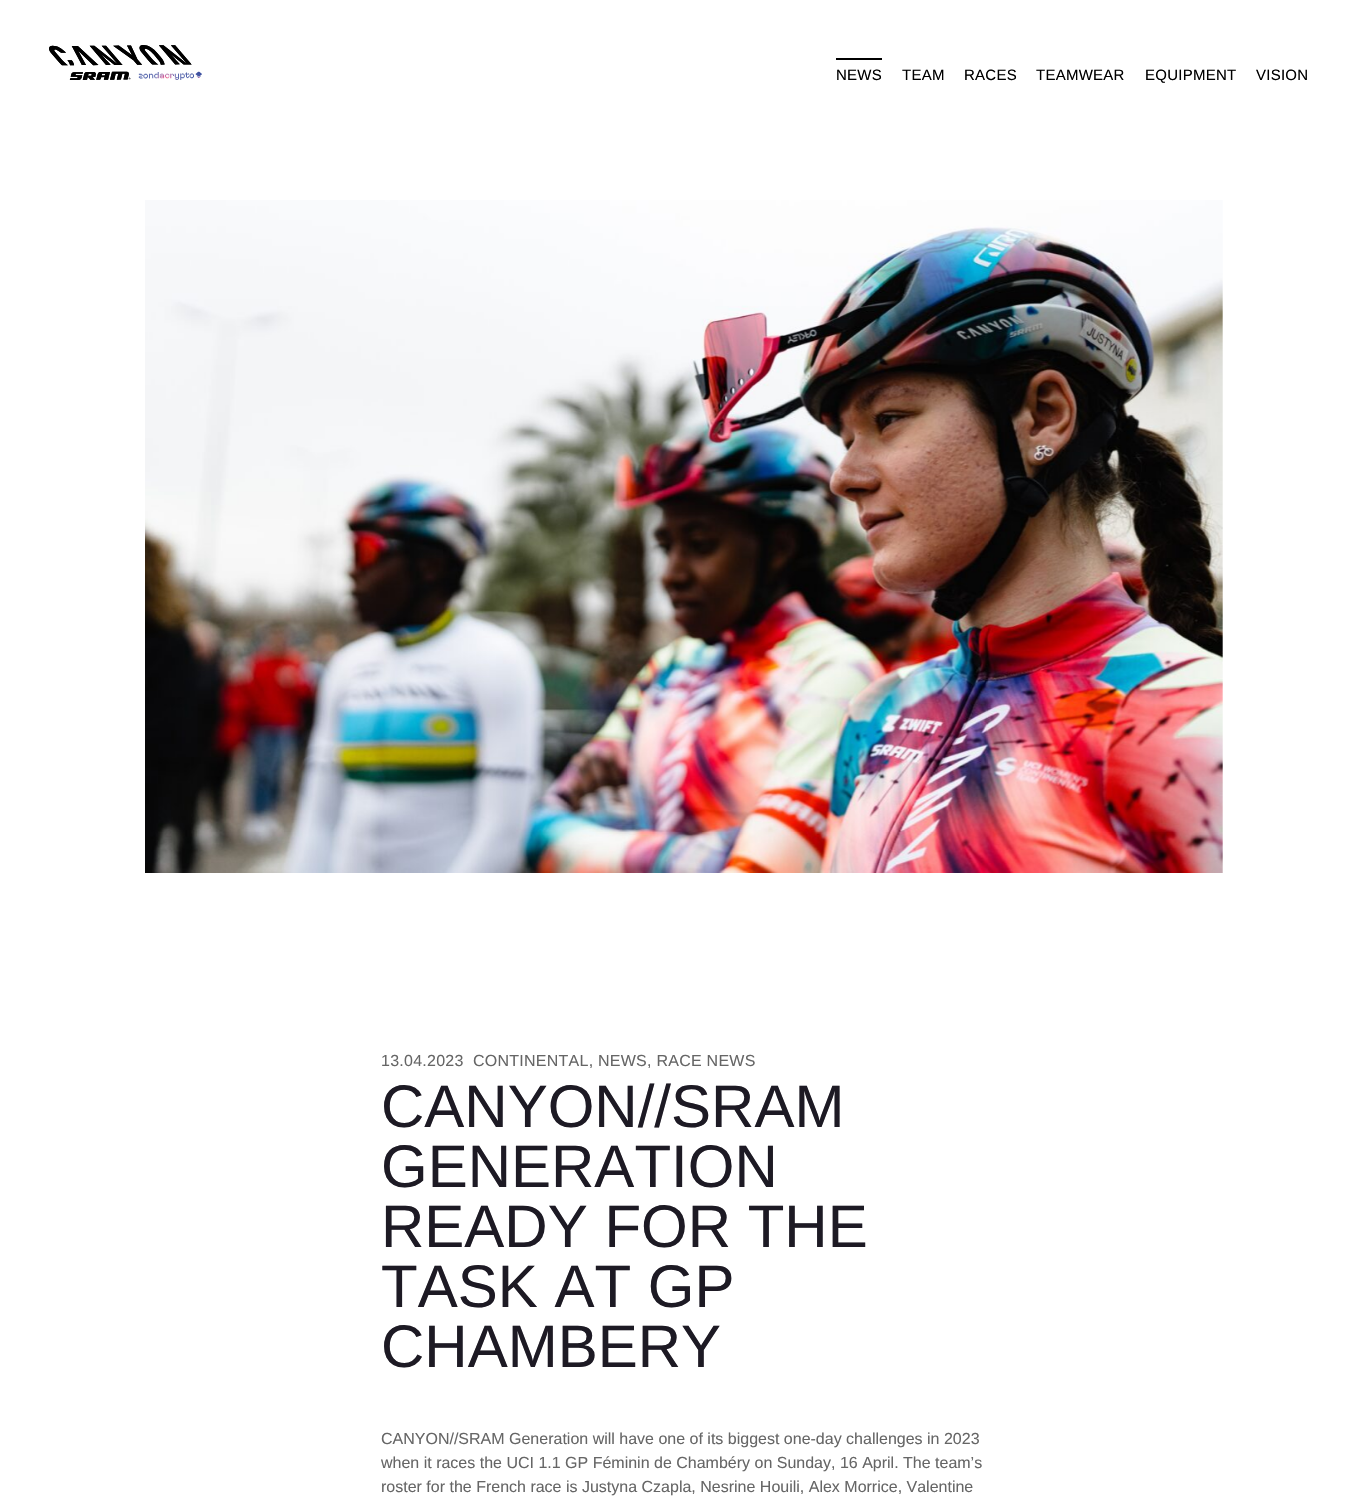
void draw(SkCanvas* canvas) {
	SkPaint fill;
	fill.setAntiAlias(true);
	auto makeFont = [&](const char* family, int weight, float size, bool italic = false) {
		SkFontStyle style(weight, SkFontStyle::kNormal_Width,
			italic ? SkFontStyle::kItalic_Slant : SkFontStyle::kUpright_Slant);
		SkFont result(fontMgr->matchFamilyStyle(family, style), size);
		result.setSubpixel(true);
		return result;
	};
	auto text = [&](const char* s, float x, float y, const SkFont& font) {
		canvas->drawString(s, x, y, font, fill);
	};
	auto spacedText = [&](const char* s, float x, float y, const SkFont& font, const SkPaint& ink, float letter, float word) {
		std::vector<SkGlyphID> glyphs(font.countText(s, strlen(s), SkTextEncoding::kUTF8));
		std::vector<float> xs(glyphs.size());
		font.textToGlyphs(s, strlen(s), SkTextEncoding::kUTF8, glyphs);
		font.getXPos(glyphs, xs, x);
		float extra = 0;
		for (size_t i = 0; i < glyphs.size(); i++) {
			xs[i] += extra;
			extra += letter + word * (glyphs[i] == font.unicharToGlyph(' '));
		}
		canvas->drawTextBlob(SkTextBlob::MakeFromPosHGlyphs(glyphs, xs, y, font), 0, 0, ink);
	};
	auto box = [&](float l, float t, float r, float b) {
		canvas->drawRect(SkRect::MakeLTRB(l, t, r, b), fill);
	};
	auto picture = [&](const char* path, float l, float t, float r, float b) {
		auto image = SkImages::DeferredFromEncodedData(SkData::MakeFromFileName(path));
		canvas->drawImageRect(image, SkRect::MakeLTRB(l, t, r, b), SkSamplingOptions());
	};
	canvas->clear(0xFFFFFFFF);
	picture("image0.png", 49, 45, 202, 80);
	fill.setColor(0xFF000000);
	box(836, 58, 882, 60);
	picture("image1.png", 145, 200, 1223, 873);
	auto font1 = makeFont("Liberation Sans", 400, 15);
	spacedText("NEWS", 836, 80, font1, fill, 0.25f, 0);
	spacedText("TEAM", 902, 80, font1, fill, 0.25f, 0);
	spacedText("RACES", 964, 80, font1, fill, 0.25f, 0);
	spacedText("TEAMWEAR", 1036, 80, font1, fill, 0.25f, 0);
	spacedText("EQUIPMENT", 1145, 80, font1, fill, 0.25f, 0);
	spacedText("VISION", 1256, 80, font1, fill, 0.25f, 0);
	auto font2 = makeFont("Liberation Sans", 400, 16);
	fill.setColor(0xFF666666);
	spacedText("13.04.2023", 381, 1066, font2, fill, 0.25f, 0);
	spacedText("CONTINENTAL, NEWS, RACE NEWS", 473, 1066, font2, fill, 0.25f, 0);
	auto font3 = makeFont("Liberation Sans", 400, 60);
	fill.setColor(0xFF1D1A24);
	text("CANYON//SRAM", 381, 1127, font3);
	text("GENERATION", 381, 1187, font3);
	text("READY FOR THE", 381, 1247, font3);
	text("TASK AT GP", 381, 1307, font3);
	text("CHAMBERY", 381, 1367, font3);
	fill.setColor(0xFF666666);
	text("CANYON//SRAM Generation will have one of its biggest one-day challenges in 2023", 381, 1444, font2);
	text("when it races the UCI 1.1 GP Féminin de Chambéry on Sunday, 16 April. The team’s", 381, 1468, font2);
	text("roster for the French race is Justyna Czapla, Nesrine Houili, Alex Morrice, Valentine", 381, 1492, font2);
}
